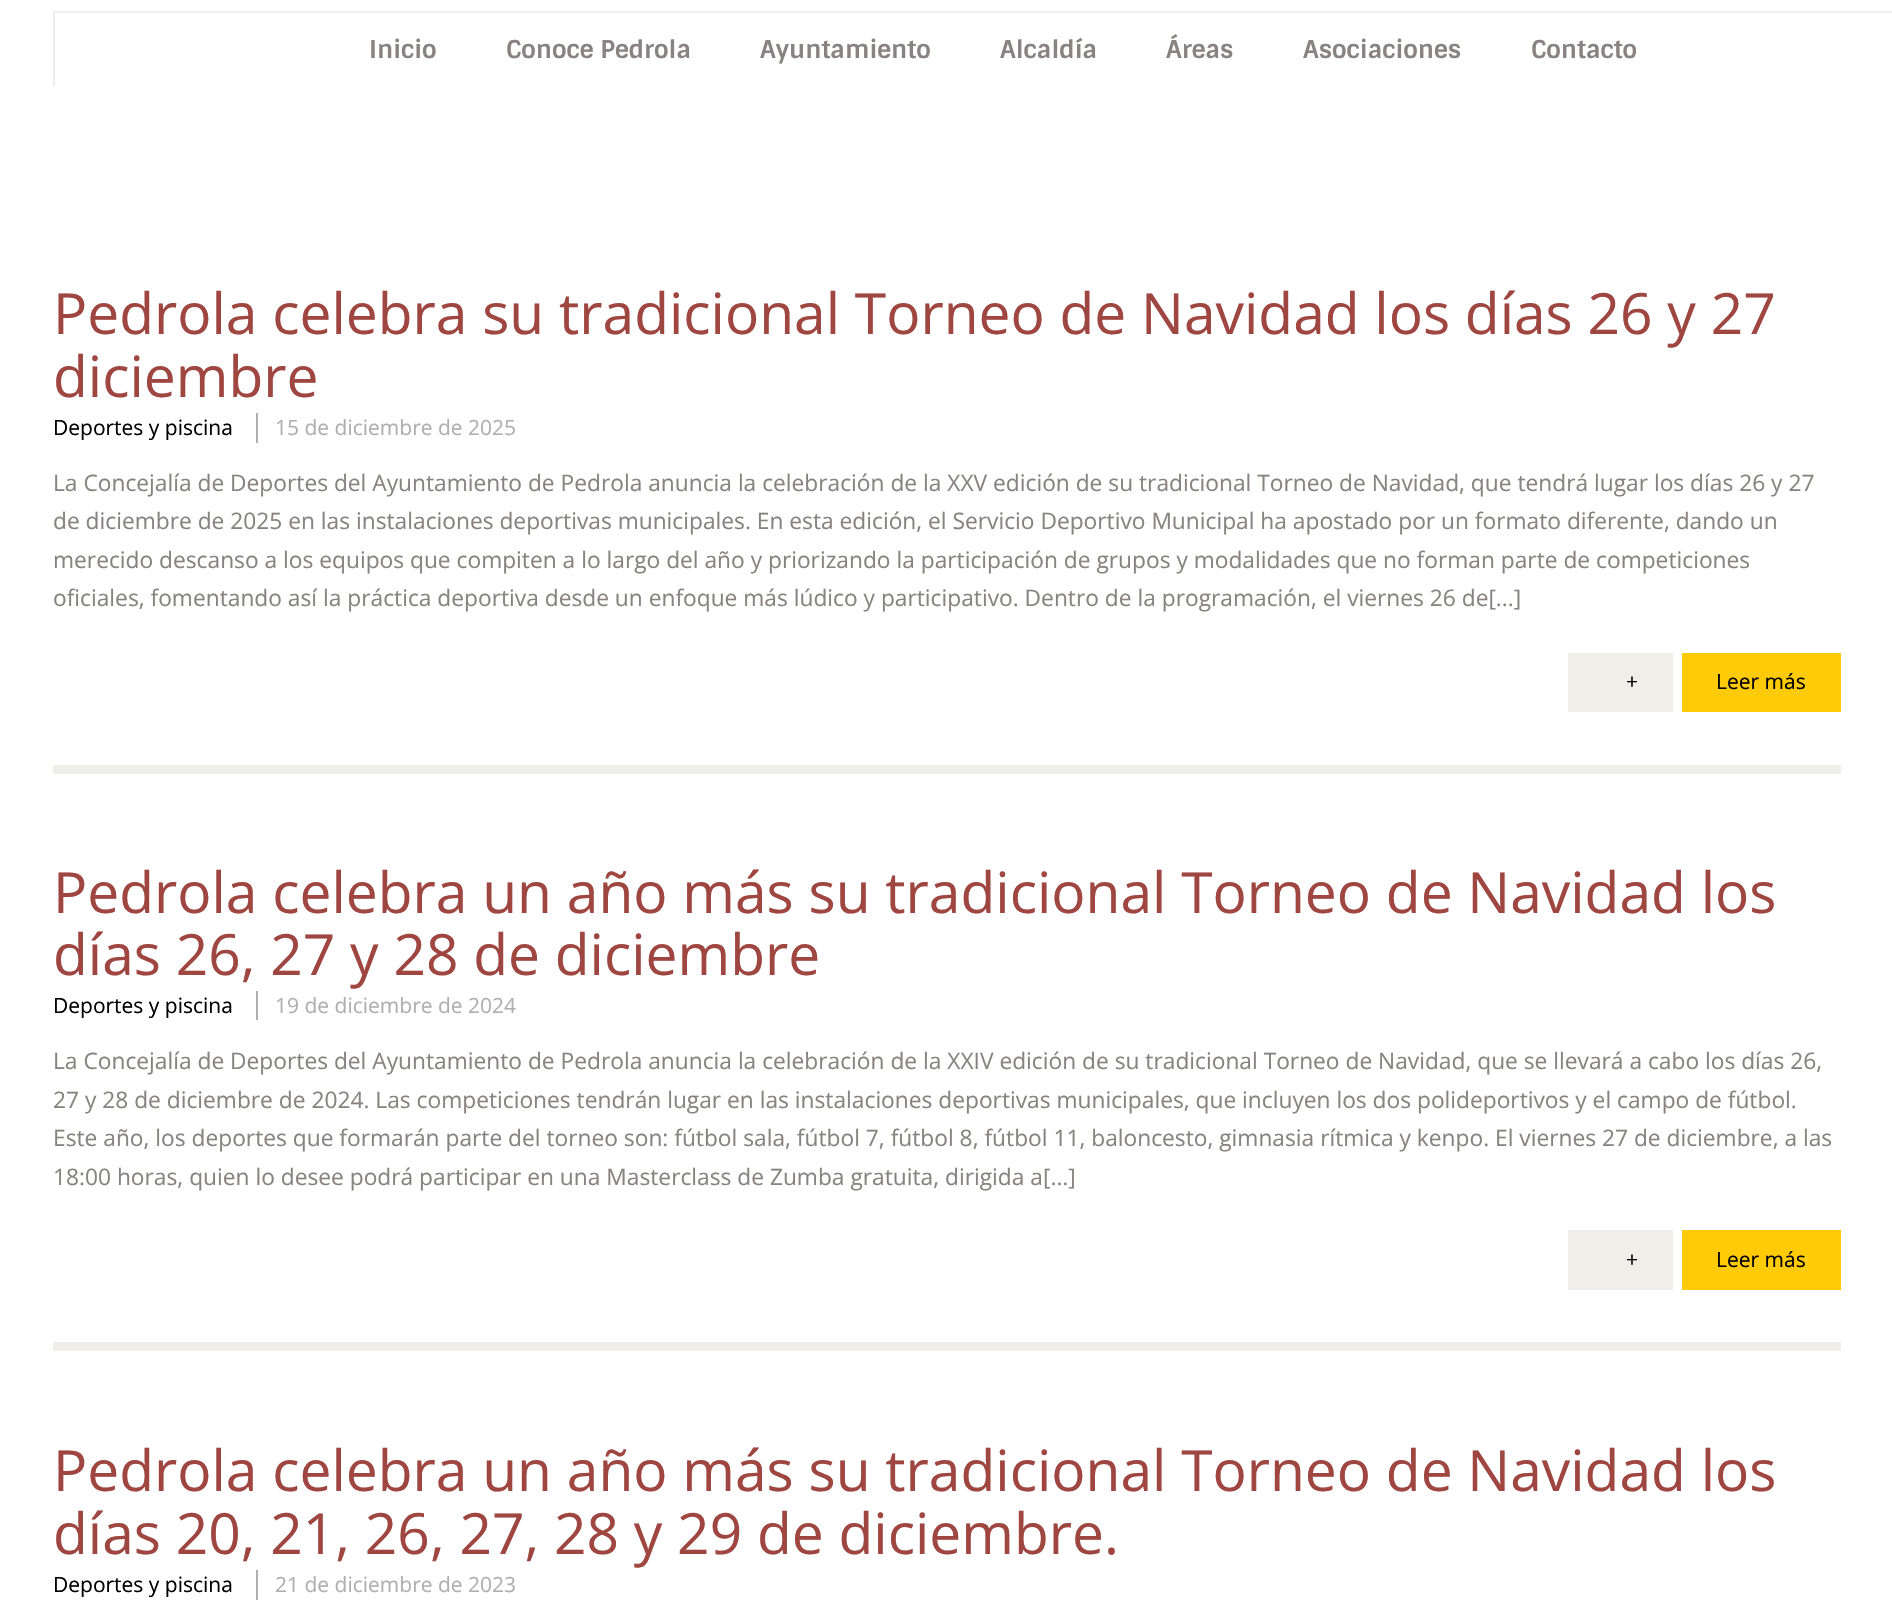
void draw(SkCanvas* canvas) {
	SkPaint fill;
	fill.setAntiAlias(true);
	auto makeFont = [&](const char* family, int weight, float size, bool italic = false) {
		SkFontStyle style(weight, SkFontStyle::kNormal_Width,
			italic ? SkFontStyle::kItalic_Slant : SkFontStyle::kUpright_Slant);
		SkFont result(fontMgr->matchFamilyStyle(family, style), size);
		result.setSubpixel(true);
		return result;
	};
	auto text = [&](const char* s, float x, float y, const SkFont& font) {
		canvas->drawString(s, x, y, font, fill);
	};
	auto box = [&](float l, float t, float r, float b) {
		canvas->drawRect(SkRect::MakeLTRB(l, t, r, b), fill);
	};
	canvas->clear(0xFFFFFFFF);
	fill.setColor(0xFFEDEFEF);
	box(53, 11, 1892, 13);
	box(53, 11, 55, 86);
	fill.setColor(0xFFEFEEE9);
	box(53, 765, 1841, 774);
	fill.setColor(0xFFAFAFAF);
	box(256, 413, 258, 443);
	fill.setColor(0xFFEFEEE9);
	box(1568, 653, 1673, 712);
	fill.setColor(0xFFFFCA07);
	box(1682, 653, 1841, 712);
	fill.setColor(0xFFEFEEE9);
	box(53, 1342, 1841, 1351);
	fill.setColor(0xFFAFAFAF);
	box(256, 991, 258, 1020);
	fill.setColor(0xFFEFEEE9);
	box(1568, 1230, 1673, 1290);
	fill.setColor(0xFFFFCA07);
	box(1682, 1230, 1841, 1290);
	fill.setColor(0xFFAFAFAF);
	box(256, 1570, 258, 1600);
	auto font1 = makeFont("Sintony", 700, 24.5f);
	fill.setColor(0xFF888381);
	text("Inicio", 369, 58, font1);
	text("Conoce Pedrola", 506, 58, font1);
	text("Ayuntamiento", 760, 58, font1);
	text("Alcaldía", 1000, 58, font1);
	text("Áreas", 1166, 58, font1);
	text("Asociaciones", 1303, 58, font1);
	text("Contacto", 1531, 58, font1);
	auto font2 = makeFont("Open Sans", 400, 56.9f);
	fill.setColor(0xFF9F4641);
	text("Pedrola celebra su tradicional Torneo de Navidad los días 26 y 27", 53, 334, font2);
	text("diciembre", 53, 397, font2);
	auto font3 = makeFont("Open Sans", 400, 21);
	fill.setColor(0xFF000000);
	text("Deportes y piscina", 53, 435, font3);
	fill.setColor(0xFFAFAFAF);
	text("15 de diciembre de 2025", 275, 435, font3);
	auto font4 = makeFont("Open Sans", 400, 22.75f);
	fill.setColor(0xFF888381);
	text("La Concejalía de Deportes del Ayuntamiento de Pedrola anuncia la celebración de la XXV edición de su tradicional Torneo de Navidad, que tendrá lugar los días 26 y 27", 53, 491, font4);
	text("de diciembre de 2025 en las instalaciones deportivas municipales. En esta edición, el Servicio Deportivo Municipal ha apostado por un formato diferente, dando un", 53, 529, font4);
	text("merecido descanso a los equipos que compiten a lo largo del año y priorizando la participación de grupos y modalidades que no forman parte de competiciones", 53, 568, font4);
	text("oficiales, fomentando así la práctica deportiva desde un enfoque más lúdico y participativo. Dentro de la programación, el viernes 26 de[...]", 53, 606, font4);
	fill.setColor(0xFF000000);
	text("+", 1626, 689, font3);
	text("Leer más", 1716, 689, font3);
	fill.setColor(0xFF9F4641);
	text("Pedrola celebra un año más su tradicional Torneo de Navidad los", 53, 913, font2);
	text("días 26, 27 y 28 de diciembre", 53, 975, font2);
	fill.setColor(0xFF000000);
	text("Deportes y piscina", 53, 1013, font3);
	fill.setColor(0xFFAFAFAF);
	text("19 de diciembre de 2024", 275, 1013, font3);
	fill.setColor(0xFF888381);
	text("La Concejalía de Deportes del Ayuntamiento de Pedrola anuncia la celebración de la XXIV edición de su tradicional Torneo de Navidad, que se llevará a cabo los días 26,", 53, 1069, font4);
	text("27 y 28 de diciembre de 2024. Las competiciones tendrán lugar en las instalaciones deportivas municipales, que incluyen los dos polideportivos y el campo de fútbol.", 53, 1108, font4);
	text("Este año, los deportes que formarán parte del torneo son: fútbol sala, fútbol 7, fútbol 8, fútbol 11, baloncesto, gimnasia rítmica y kenpo. El viernes 27 de diciembre, a las", 53, 1146, font4);
	text("18:00 horas, quien lo desee podrá participar en una Masterclass de Zumba gratuita, dirigida a[...]", 53, 1185, font4);
	fill.setColor(0xFF000000);
	text("+", 1626, 1267, font3);
	text("Leer más", 1716, 1267, font3);
	fill.setColor(0xFF9F4641);
	text("Pedrola celebra un año más su tradicional Torneo de Navidad los", 53, 1491, font2);
	text("días 20, 21, 26, 27, 28 y 29 de diciembre.", 53, 1554, font2);
	fill.setColor(0xFF000000);
	text("Deportes y piscina", 53, 1592, font3);
	fill.setColor(0xFFAFAFAF);
	text("21 de diciembre de 2023", 275, 1592, font3);
}
